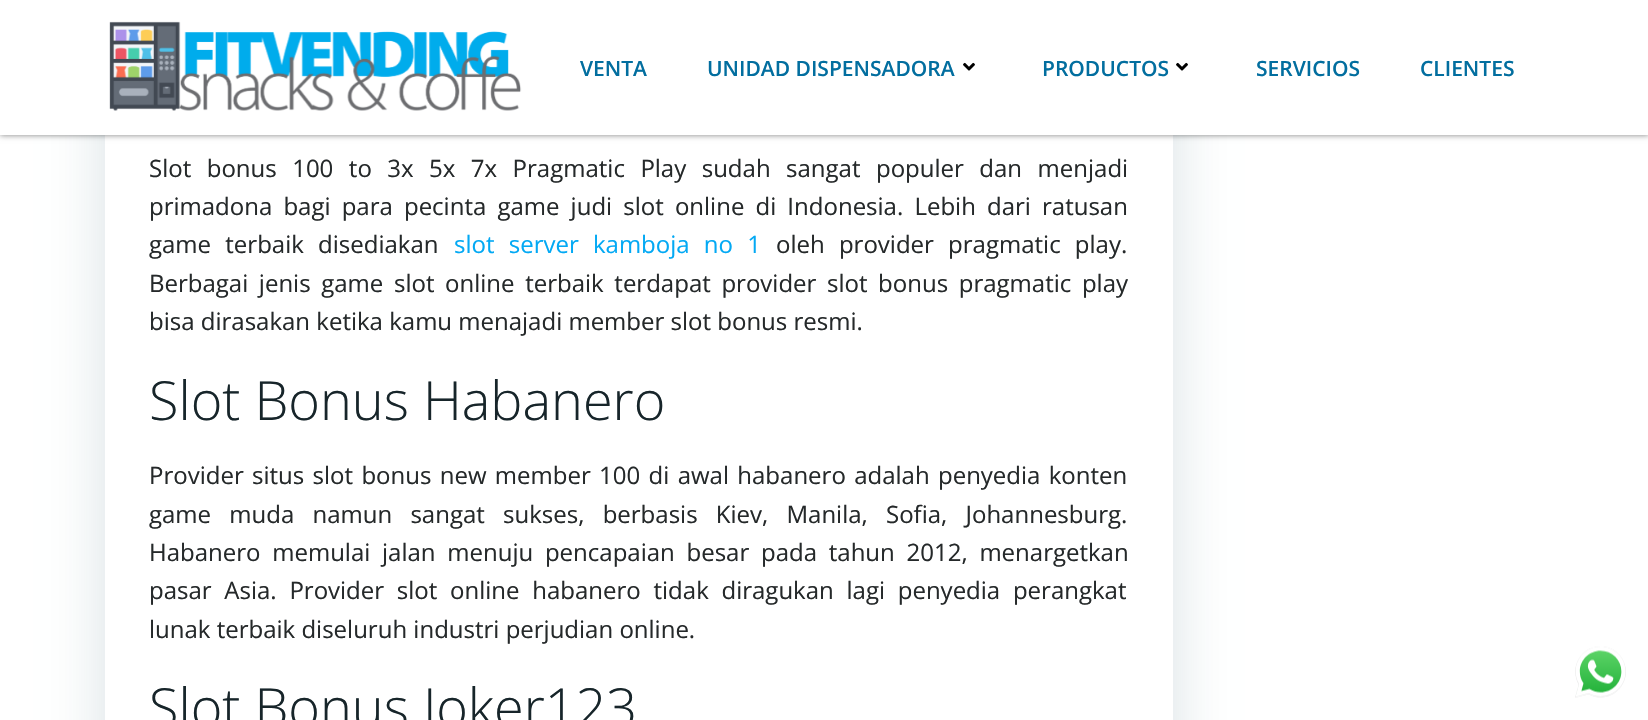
void draw(SkCanvas* canvas) {
	SkPaint fill;
	fill.setAntiAlias(true);
	auto makeFont = [&](const char* family, int weight, float size, bool italic = false) {
		SkFontStyle style(weight, SkFontStyle::kNormal_Width,
			italic ? SkFontStyle::kItalic_Slant : SkFontStyle::kUpright_Slant);
		SkFont result(fontMgr->matchFamilyStyle(family, style), size);
		result.setSubpixel(true);
		return result;
	};
	auto text = [&](const char* s, float x, float y, const SkFont& font) {
		canvas->drawString(s, x, y, font, fill);
	};
	auto spacedText = [&](const char* s, float x, float y, const SkFont& font, const SkPaint& ink, float letter, float word) {
		std::vector<SkGlyphID> glyphs(font.countText(s, strlen(s), SkTextEncoding::kUTF8));
		std::vector<float> xs(glyphs.size());
		font.textToGlyphs(s, strlen(s), SkTextEncoding::kUTF8, glyphs);
		font.getXPos(glyphs, xs, x);
		float extra = 0;
		for (size_t i = 0; i < glyphs.size(); i++) {
			xs[i] += extra;
			extra += letter + word * (glyphs[i] == font.unicharToGlyph(' '));
		}
		canvas->drawTextBlob(SkTextBlob::MakeFromPosHGlyphs(glyphs, xs, y, font), 0, 0, ink);
	};
	auto box = [&](float l, float t, float r, float b) {
		canvas->drawRect(SkRect::MakeLTRB(l, t, r, b), fill);
	};
	auto picture = [&](const char* path, float l, float t, float r, float b) {
		auto image = SkImages::DeferredFromEncodedData(SkData::MakeFromFileName(path));
		canvas->drawImageRect(image, SkRect::MakeLTRB(l, t, r, b), SkSamplingOptions());
	};
	canvas->clear(0xFFFFFFFF);
	fill.setColor(0x80000000);
	fill.setMaskFilter(SkMaskFilter::MakeBlur(kNormal_SkBlurStyle, 3));
	canvas->drawRect(SkRect::MakeLTRB(0, 0, 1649, 135), fill);
	fill.setMaskFilter(nullptr);
	canvas->save();
	canvas->clipPath(SkPathBuilder(SkPathFillType::kEvenOdd).moveTo(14, 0).lineTo(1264, 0).lineTo(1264, 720).lineTo(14, 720).close().moveTo(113, -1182).lineTo(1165, -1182).cubicTo(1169.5f, -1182, 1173, -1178.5f, 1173, -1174).lineTo(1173, 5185).cubicTo(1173, 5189.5f, 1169.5f, 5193, 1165, 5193).lineTo(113, 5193).cubicTo(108.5f, 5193, 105, 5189.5f, 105, 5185).lineTo(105, -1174).cubicTo(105, -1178.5f, 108.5f, -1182, 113, -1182).close().detach(), true);
	fill.setColor(0x2601334A);
	fill.setMaskFilter(SkMaskFilter::MakeBlur(kNormal_SkBlurStyle, 30));
	canvas->drawRoundRect(SkRect::MakeLTRB(105, -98, 1173, 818), 8, 8, fill);
	fill.setMaskFilter(nullptr);
	canvas->restore();
	fill.setColor(0xFFFFFFFF);
	box(0, 0, 1648, 135);
	picture("image0.png", 109, 21, 522, 111);
	picture("image1.png", 963, 62, 975, 71);
	picture("image1.png", 1176, 62, 1188, 71);
	picture("image2.png", 1575, 646, 1626, 698);
	auto font1 = makeFont("Open Sans", 600, 21);
	fill.setColor(0xFF026E9F);
	text("VENTA", 580, 76, font1);
	text("UNIDAD DISPENSADORA", 707, 76, font1);
	text("PRODUCTOS", 1042, 76, font1);
	text("SERVICIOS", 1256, 76, font1);
	text("CLIENTES", 1420, 76, font1);
	auto font2 = makeFont("Open Sans", 400, 24);
	fill.setColor(0xFF25292A);
	spacedText("Slot bonus 100 to 3x 5x 7x Pragmatic Play sudah sangat populer dan menjadi", 149, 177, font2, fill, 0, 9.25f);
	spacedText("primadona bagi para pecinta game judi slot online di Indonesia. Lebih dari ratusan", 149, 215, font2, fill, 0, 4.9f);
	spacedText("game terbaik disediakan", 149, 253, font2, fill, 0, 8);
	fill.setColor(0xFF03A9F4);
	spacedText("slot server kamboja no 1", 454, 253, font2, fill, 0, 8);
	fill.setColor(0xFF25292A);
	spacedText("oleh provider pragmatic play.", 776, 253, font2, fill, 0, 8);
	spacedText("Berbagai jenis game slot online terbaik terdapat provider slot bonus pragmatic play", 149, 292, font2, fill, 0, 4.4f);
	text("bisa dirasakan ketika kamu menajadi member slot bonus resmi.", 149, 330, font2);
	auto font3 = makeFont("Open Sans", 300, 54);
	fill.setColor(0xFF17252A);
	text("Slot Bonus Habanero", 149, 420, font3);
	fill.setColor(0xFF25292A);
	spacedText("Provider situs slot bonus new member 100 di awal habanero adalah penyedia konten", 149, 484, font2, fill, 0, 2.1f);
	spacedText("game muda namun sangat sukses, berbasis Kiev, Manila, Sofia, Johannesburg.", 149, 523, font2, fill, 0, 12);
	spacedText("Habanero memulai jalan menuju pencapaian besar pada tahun 2012, menargetkan", 149, 561, font2, fill, 0, 5.5f);
	spacedText("pasar Asia. Provider slot online habanero tidak diragukan lagi penyedia perangkat", 149, 599, font2, fill, 0, 6.5f);
	text("lunak terbaik diseluruh industri perjudian online.", 149, 638, font2);
	fill.setColor(0xFF17252A);
	text("Slot Bonus Joker123", 149, 727, font3);
}
